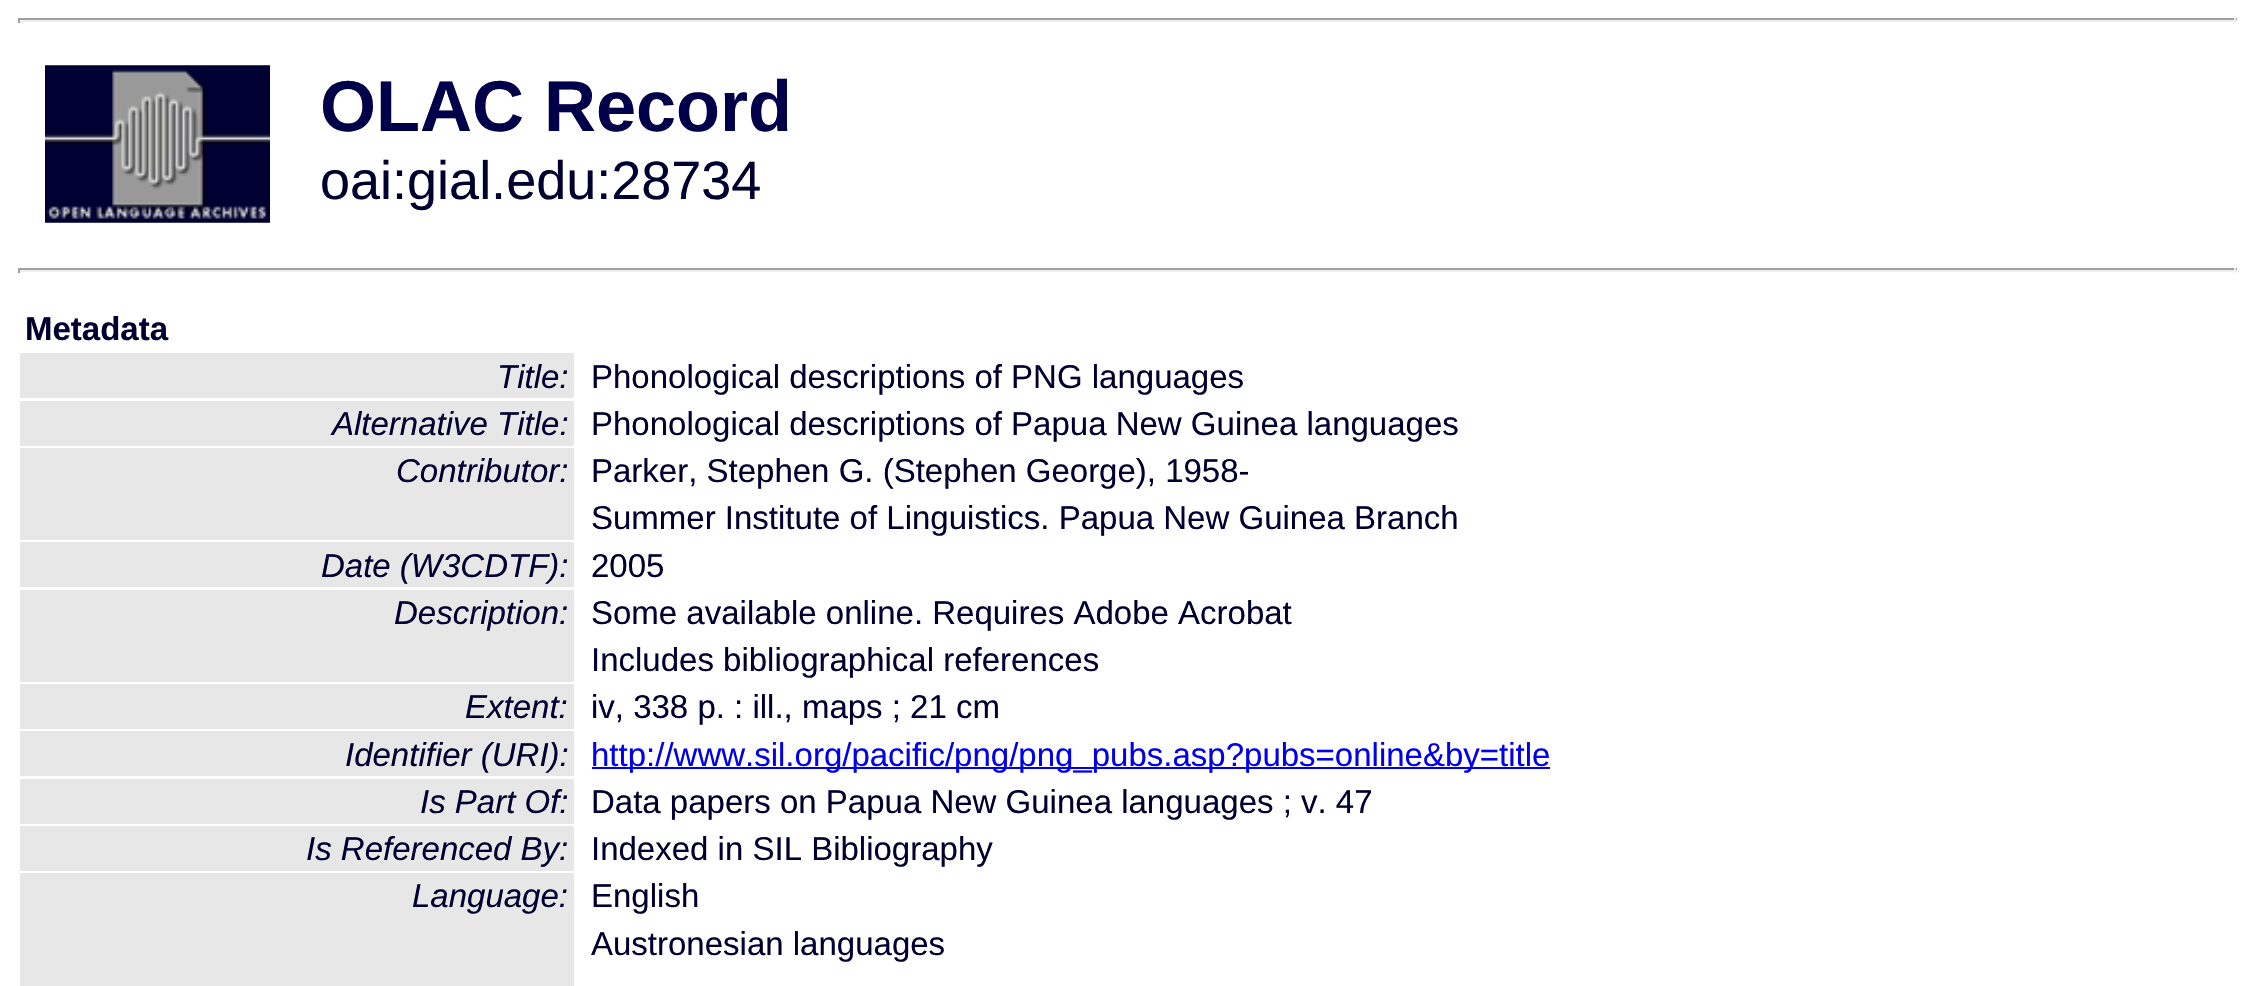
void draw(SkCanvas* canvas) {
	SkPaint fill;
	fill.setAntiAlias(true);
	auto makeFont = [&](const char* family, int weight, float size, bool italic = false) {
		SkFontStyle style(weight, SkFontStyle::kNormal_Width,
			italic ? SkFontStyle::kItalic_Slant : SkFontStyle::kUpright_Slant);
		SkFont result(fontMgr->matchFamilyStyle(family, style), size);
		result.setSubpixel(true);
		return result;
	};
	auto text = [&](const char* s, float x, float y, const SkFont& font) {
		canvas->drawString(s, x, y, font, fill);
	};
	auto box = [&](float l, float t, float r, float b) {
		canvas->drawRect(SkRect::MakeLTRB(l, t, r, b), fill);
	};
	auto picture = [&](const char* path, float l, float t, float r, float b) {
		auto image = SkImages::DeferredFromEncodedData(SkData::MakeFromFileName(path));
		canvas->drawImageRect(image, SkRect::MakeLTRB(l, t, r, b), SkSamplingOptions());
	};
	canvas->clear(0xFFFFFFFF);
	fill.setColor(0xFF9F9F9F);
	box(18, 18, 2237, 20);
	fill.setColor(0xFFEEEEEE);
	box(2234, 18, 2236, 23);
	box(18, 20, 2237, 22);
	fill.setColor(0xFF9F9F9F);
	box(18, 18, 20, 23);
	picture("image0.png", 45, 65, 270, 223);
	box(18, 268, 2237, 270);
	fill.setColor(0xFFEEEEEE);
	box(2234, 268, 2236, 273);
	box(18, 270, 2237, 272);
	fill.setColor(0xFF9F9F9F);
	box(18, 268, 20, 273);
	fill.setColor(0xFFE7E7E7);
	box(20, 353, 574, 398);
	box(20, 401, 574, 446);
	box(20, 448, 574, 540);
	box(20, 542, 574, 587);
	box(20, 590, 574, 682);
	box(20, 684, 574, 729);
	box(20, 731, 574, 776);
	fill.setColor(0xFF0000EE);
	box(592, 767, 1550, 769);
	fill.setColor(0xFFE7E7E7);
	box(20, 779, 574, 824);
	box(20, 826, 574, 871);
	box(20, 873, 574, 986);
	auto font1 = makeFont("Liberation Sans", 700, 72);
	fill.setColor(0xFF00004A);
	text("OLAC Record", 320, 131, font1);
	auto font2 = makeFont("Liberation Sans", 400, 54);
	fill.setColor(0xFF000030);
	text("oai:gial.edu:28734", 320, 199, font2);
	auto font3 = makeFont("Liberation Sans", 700, 33);
	text("Metadata", 25, 340, font3);
	auto font4 = makeFont("Liberation Sans", 400, 33, true);
	text("Title:", 497, 388, font4);
	auto font5 = makeFont("Liberation Sans", 400, 33);
	text("Phonological descriptions of PNG languages", 591, 388, font5);
	text("Alternative Title:", 332, 435, font4);
	text("Phonological descriptions of Papua New Guinea languages", 591, 435, font5);
	text("Contributor:", 396, 482, font4);
	text("Parker, Stephen G. (Stephen George), 1958-", 591, 482, font5);
	text("Summer Institute of Linguistics. Papua New Guinea Branch", 591, 529, font5);
	text("Date (W3CDTF):", 321, 577, font4);
	text("2005", 591, 577, font5);
	text("Description:", 394, 624, font4);
	text("Some available online. Requires Adobe Acrobat", 591, 624, font5);
	text("Includes bibliographical references", 591, 671, font5);
	text("Extent:", 465, 718, font4);
	text("iv, 338 p. : ill., maps ; 21 cm", 591, 718, font5);
	text("Identifier (URI):", 345, 766, font4);
	fill.setColor(0xFF0000EE);
	text("http://www.sil.org/pacific/png/png_pubs.asp?pubs=online&by=title", 591, 766, font5);
	fill.setColor(0xFF000030);
	text("Is Part Of:", 420, 813, font4);
	text("Data papers on Papua New Guinea languages ; v. 47", 591, 813, font5);
	text("Is Referenced By:", 306, 860, font4);
	text("Indexed in SIL Bibliography", 591, 860, font5);
	text("Language:", 412, 907, font4);
	text("English", 591, 907, font5);
	text("Austronesian languages", 591, 955, font5);
}
